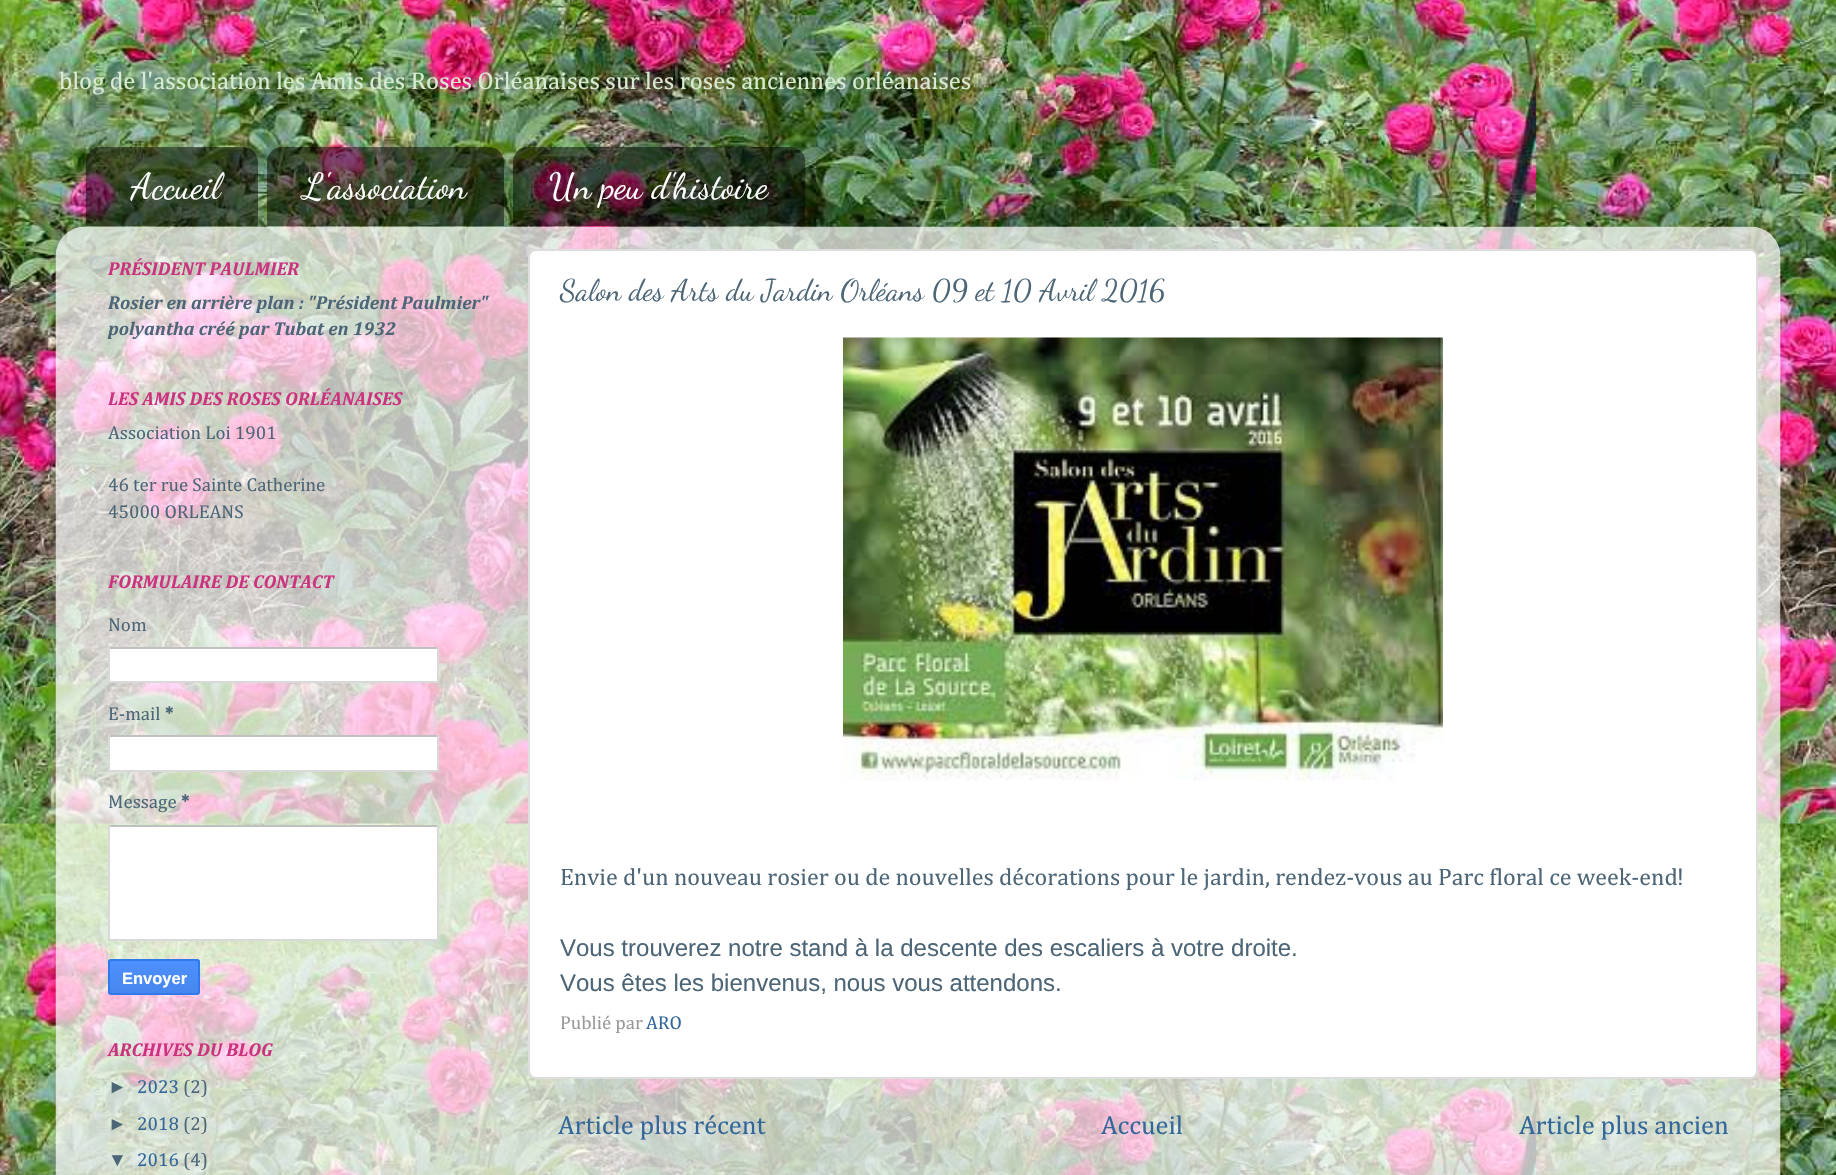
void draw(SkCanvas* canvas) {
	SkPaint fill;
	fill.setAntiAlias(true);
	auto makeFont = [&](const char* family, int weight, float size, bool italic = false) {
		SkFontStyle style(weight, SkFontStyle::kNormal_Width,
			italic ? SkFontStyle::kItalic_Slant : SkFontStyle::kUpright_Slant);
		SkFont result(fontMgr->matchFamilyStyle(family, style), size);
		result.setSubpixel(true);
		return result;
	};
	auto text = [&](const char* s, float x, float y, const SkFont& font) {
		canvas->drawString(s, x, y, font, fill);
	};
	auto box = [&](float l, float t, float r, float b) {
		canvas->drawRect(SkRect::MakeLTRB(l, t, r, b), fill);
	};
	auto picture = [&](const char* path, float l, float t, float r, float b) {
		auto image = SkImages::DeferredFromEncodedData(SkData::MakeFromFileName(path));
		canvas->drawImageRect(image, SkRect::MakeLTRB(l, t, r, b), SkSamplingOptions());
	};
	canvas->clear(0xFFFFFFFF);
	picture("image0.png", 0, 0, 1836, 1175);
	picture("image1.png", 85, 147, 258, 227);
	picture("image2.png", 267, 147, 504, 227);
	picture("image3.png", 513, 147, 806, 227);
	canvas->save();
	canvas->clipPath(SkPathBuilder(SkPathFillType::kEvenOdd).moveTo(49, 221).lineTo(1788, 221).lineTo(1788, 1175).lineTo(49, 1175).close().moveTo(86, 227).lineTo(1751, 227).cubicTo(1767.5f, 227, 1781, 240.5f, 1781, 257).lineTo(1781, 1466).lineTo(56, 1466).lineTo(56, 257).cubicTo(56, 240.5f, 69.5f, 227, 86, 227).close().detach(), true);
	fill.setColor(0x26000000);
	fill.setMaskFilter(SkMaskFilter::MakeBlur(kNormal_SkBlurStyle, 2));
	canvas->drawRoundRect(SkRect::MakeLTRB(56, 228, 1781, 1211), 30, 30, fill);
	fill.setMaskFilter(nullptr);
	canvas->restore();
	picture("image4.png", 55, 226, 1781, 1175);
	fill.setColor(0xFFFFFFFF);
	box(110, 649, 437, 681);
	fill.setColor(0xFFC0C0C0);
	box(108, 647, 438, 649);
	fill.setColor(0xFFD9D9D9);
	box(437, 647, 439, 683);
	box(108, 681, 438, 683);
	box(108, 647, 110, 683);
	fill.setColor(0xFFFFFFFF);
	box(110, 737, 437, 770);
	fill.setColor(0xFFC0C0C0);
	box(108, 735, 438, 737);
	fill.setColor(0xFFD9D9D9);
	box(437, 735, 439, 771);
	box(108, 770, 438, 772);
	box(108, 735, 110, 771);
	fill.setColor(0xFFFFFFFF);
	box(110, 827, 437, 939);
	fill.setColor(0xFFC0C0C0);
	box(108, 825, 438, 827);
	fill.setColor(0xFFD9D9D9);
	box(437, 825, 439, 941);
	box(108, 939, 438, 941);
	box(108, 825, 110, 941);
	canvas->save();
	canvas->clipPath(SkPathBuilder().moveTo(111, 959).lineTo(197, 959).cubicTo(198.5f, 959, 200, 960.5f, 200, 962).lineTo(200, 992).cubicTo(200, 993.5f, 198.5f, 995, 197, 995).lineTo(111, 995).cubicTo(109.5f, 995, 108, 993.5f, 108, 992).lineTo(108, 962).cubicTo(108, 960.5f, 109.5f, 959, 111, 959).close().detach(), true);
	{
		const SkColor colors[] = {0xFF4D90FE, 0xFF4787ED};
		const float stops[] = {0, 1};
		const SkPoint ends[] = {{154, 960}, {154, 993}};
		fill.setShader(SkGradientShader::MakeLinear(ends, colors, stops, 2, SkTileMode::kClamp));
		fill.setAlpha(255);
	}
	box(108, 960, 200, 993);
	canvas->restore();
	fill.setStyle(SkPaint::kStroke_Style);
	fill.setStrokeWidth(2);
	fill.setShader(nullptr);
	fill.setColor(0xFF3079ED);
	canvas->drawRoundRect(SkRect::MakeLTRB(109, 960, 199, 994), 2, 2, fill);
	fill.setStyle(SkPaint::kFill_Style);
	fill.setColor(0xFFFFFFFF);
	canvas->drawRoundRect(SkRect::MakeLTRB(529, 250, 1757, 1078), 7, 7, fill);
	fill.setStyle(SkPaint::kStroke_Style);
	fill.setColor(0xFFDDDDDD);
	canvas->drawRoundRect(SkRect::MakeLTRB(529, 250, 1757, 1078), 7, 7, fill);
	picture("image5.png", 843, 337, 1443, 781);
	auto font1 = makeFont("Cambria", 400, 24.55f);
	fill.setStyle(SkPaint::kFill_Style);
	fill.setColor(0xFFD9EAD3);
	text("blog de l'association les Amis des Roses Orléanaises sur les roses anciennes orléanaises", 59, 89, font1);
	auto font2 = makeFont("Dancing Script", 400, 36);
	fill.setColor(0xFFFFFFFF);
	text("Accueil", 131, 198, font2);
	text("L'association", 303, 198, font2);
	text("Un peu d'histoire", 549, 198, font2);
	auto font3 = makeFont("Cambria", 700, 18.9f, true);
	fill.setColor(0xFFCC337F);
	text("PRÉSIDENT PAULMIER", 108, 275, font3);
	fill.setColor(0xFF4C6677);
	text("Rosier en arrière plan : \"Président Paulmier\"", 108, 309, font3);
	text("polyantha créé par Tubat en 1932", 108, 335, font3);
	fill.setColor(0xFFCC337F);
	text("LES AMIS DES ROSES ORLÉANAISES", 108, 405, font3);
	auto font4 = makeFont("Cambria", 400, 18.9f);
	fill.setColor(0xFF4C6677);
	text("Association Loi 1901", 108, 439, font4);
	text("46 ter rue Sainte Catherine", 108, 491, font4);
	text("45000 ORLEANS", 108, 518, font4);
	fill.setColor(0xFFCC337F);
	text("FORMULAIRE DE CONTACT", 108, 588, font3);
	fill.setColor(0xFF4C6677);
	text("Nom", 108, 631, font4);
	text("E-mail", 108, 720, font4);
	auto font5 = makeFont("Cambria", 700, 18.9f);
	text("*", 165, 720, font5);
	text("Message", 108, 808, font4);
	text("*", 181, 808, font5);
	auto font6 = makeFont("Liberation Sans", 700, 16.5f);
	fill.setColor(0xFFFFFFFF);
	text("Envoyer", 122, 984, font6);
	fill.setColor(0xFFCC337F);
	text("ARCHIVES DU BLOG", 108, 1056, font3);
	auto font7 = makeFont("Liberation Sans", 400, 18.9f);
	fill.setColor(0xFF4C6677);
	text("►", 108, 1093, font7);
	fill.setColor(0xFF336699);
	text("2023", 137, 1093, font4);
	fill.setColor(0xFF4C6677);
	text("(2)", 183, 1093, font4);
	text("►", 108, 1130, font7);
	fill.setColor(0xFF336699);
	text("2018", 137, 1130, font4);
	fill.setColor(0xFF4C6677);
	text("(2)", 183, 1130, font4);
	text("▼", 108, 1166, font7);
	fill.setColor(0xFF336699);
	text("2016", 137, 1166, font4);
	fill.setColor(0xFF4C6677);
	text("(4)", 183, 1166, font4);
	auto font8 = makeFont("Dancing Script", 400, 30);
	text("Salon des Arts du Jardin Orléans 09 et 10 Avril 2016", 560, 300, font8);
	auto font9 = makeFont("Cambria", 400, 24);
	text("Envie d'un nouveau rosier ou de nouvelles décorations pour le jardin, rendez-vous au Parc floral ce week-end", 560, 885, font9);
	auto font10 = makeFont("Liberation Sans", 400, 24);
	text("!", 1677, 885, font10);
	text("Vous trouverez notre stand à la descente des escaliers à votre droite.", 560, 956, font10);
	text("Vous êtes les bienvenus, nous vous attendons.", 560, 991, font10);
	fill.setColor(0xFF999999);
	text("Publié par", 560, 1029, font4);
	fill.setColor(0xFF336699);
	text("ARO", 646, 1029, font4);
	auto font11 = makeFont("Cambria", 400, 26.5f);
	text("Article plus récent", 558, 1134, font11);
	text("Accueil", 1101, 1134, font11);
	text("Article plus ancien", 1519, 1134, font11);
}
